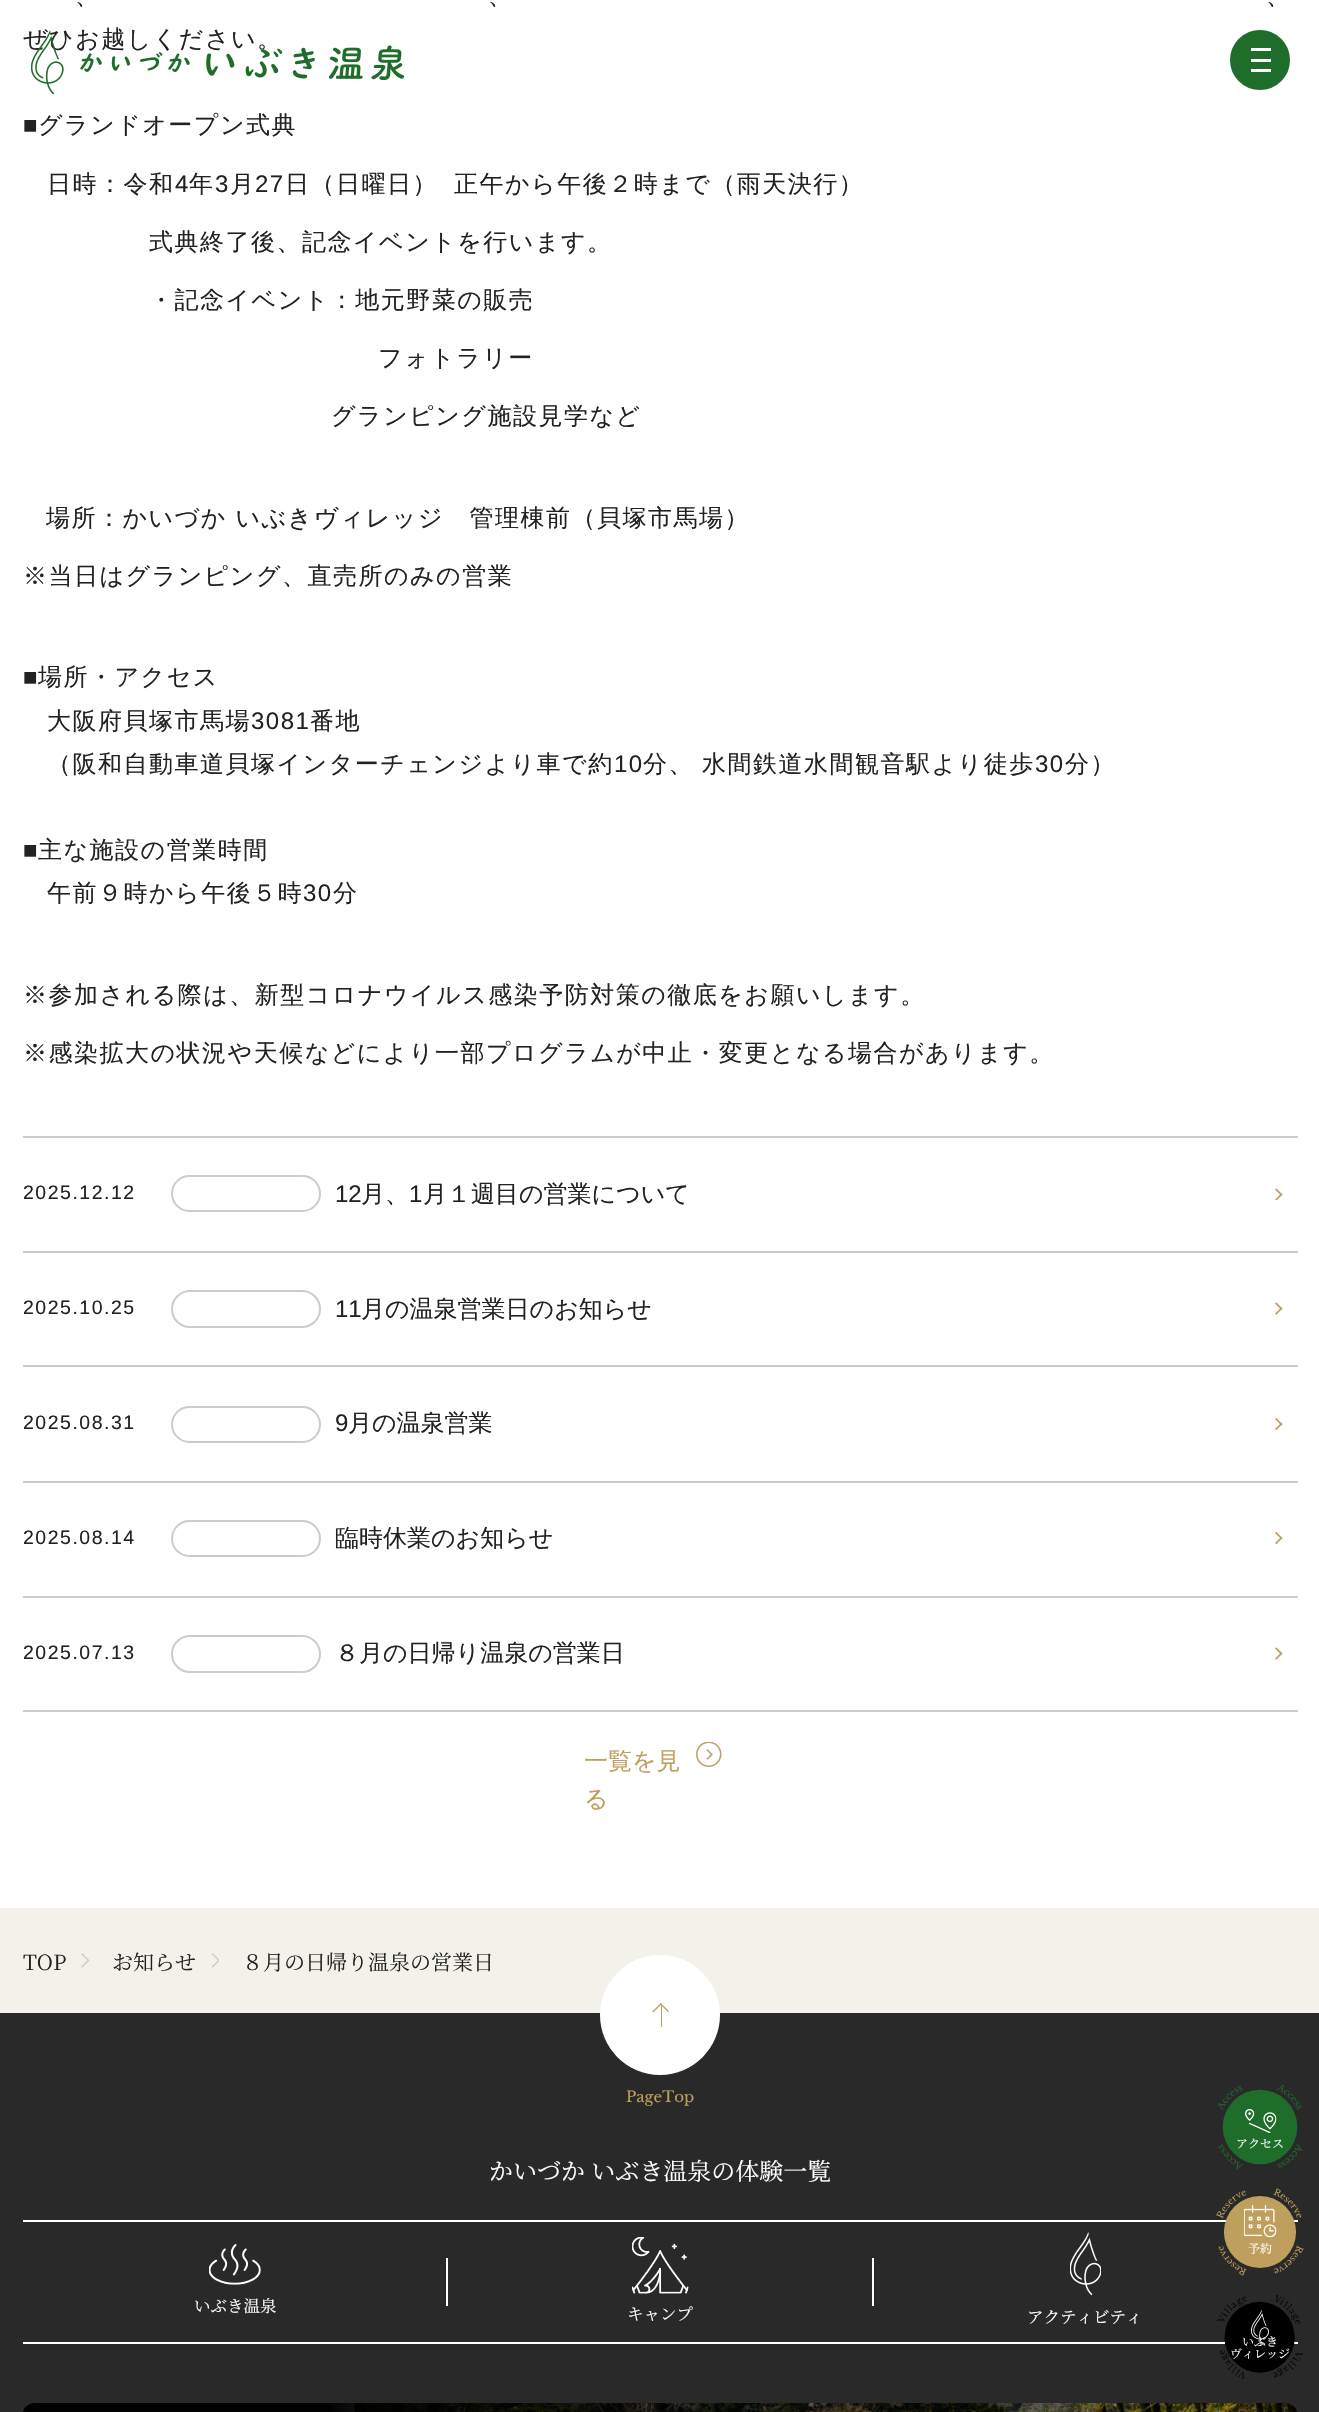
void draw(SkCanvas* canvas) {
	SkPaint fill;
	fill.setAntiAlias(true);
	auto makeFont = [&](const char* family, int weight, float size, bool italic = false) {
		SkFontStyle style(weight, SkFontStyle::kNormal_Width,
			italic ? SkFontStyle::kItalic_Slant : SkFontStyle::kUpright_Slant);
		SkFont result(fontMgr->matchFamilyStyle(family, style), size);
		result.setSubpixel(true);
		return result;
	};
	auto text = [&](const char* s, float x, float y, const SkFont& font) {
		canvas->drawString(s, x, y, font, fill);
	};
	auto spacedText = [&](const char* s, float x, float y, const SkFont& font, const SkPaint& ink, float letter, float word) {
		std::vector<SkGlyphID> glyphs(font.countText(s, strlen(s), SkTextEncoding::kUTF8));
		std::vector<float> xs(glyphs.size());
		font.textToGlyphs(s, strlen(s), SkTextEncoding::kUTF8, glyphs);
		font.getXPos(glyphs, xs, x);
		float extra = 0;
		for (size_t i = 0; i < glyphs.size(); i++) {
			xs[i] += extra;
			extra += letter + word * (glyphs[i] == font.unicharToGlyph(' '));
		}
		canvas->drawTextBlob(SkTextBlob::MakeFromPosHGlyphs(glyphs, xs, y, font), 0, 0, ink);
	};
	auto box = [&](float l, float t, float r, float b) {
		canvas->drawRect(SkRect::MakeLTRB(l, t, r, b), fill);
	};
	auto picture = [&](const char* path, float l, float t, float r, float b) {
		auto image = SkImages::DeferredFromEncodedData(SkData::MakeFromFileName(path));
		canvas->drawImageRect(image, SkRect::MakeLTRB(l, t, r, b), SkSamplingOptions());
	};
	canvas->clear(0xFFFFFFFF);
	picture("image0.png", 1275, 1188, 1283, 1200);
	fill.setColor(0xFFCCCCCC);
	box(23, 1136, 1298, 1138);
	fill.setStyle(SkPaint::kStroke_Style);
	fill.setStrokeWidth(2);
	canvas->drawRoundRect(SkRect::MakeLTRB(172, 1176, 320, 1211), 17.5f, 17.5f, fill);
	picture("image1.png", 1275, 1302, 1283, 1315);
	fill.setStyle(SkPaint::kFill_Style);
	box(23, 1251, 1298, 1253);
	fill.setStyle(SkPaint::kStroke_Style);
	canvas->drawRoundRect(SkRect::MakeLTRB(172, 1291, 320, 1327), 18, 18, fill);
	picture("image2.png", 1275, 1418, 1283, 1430);
	fill.setStyle(SkPaint::kFill_Style);
	box(23, 1365, 1298, 1367);
	fill.setStyle(SkPaint::kStroke_Style);
	canvas->drawRoundRect(SkRect::MakeLTRB(172, 1407, 320, 1442), 17.5f, 17.5f, fill);
	picture("image3.png", 1275, 1532, 1283, 1545);
	fill.setStyle(SkPaint::kFill_Style);
	box(23, 1481, 1298, 1483);
	fill.setStyle(SkPaint::kStroke_Style);
	canvas->drawRoundRect(SkRect::MakeLTRB(172, 1521, 320, 1556), 17.5f, 17.5f, fill);
	picture("image1.png", 1275, 1647, 1283, 1660);
	fill.setStyle(SkPaint::kFill_Style);
	box(23, 1596, 1298, 1598);
	box(23, 1710, 1298, 1712);
	fill.setStyle(SkPaint::kStroke_Style);
	canvas->drawRoundRect(SkRect::MakeLTRB(172, 1636, 320, 1672), 18, 18, fill);
	picture("image4.png", 696, 1742, 722, 1767);
	fill.setStyle(SkPaint::kFill_Style);
	fill.setColor(0xFF1F6D2B);
	canvas->drawCircle(1260, 60, 29, fill);
	fill.setStyle(SkPaint::kStroke_Style);
	canvas->drawCircle(1260, 60, 29, fill);
	fill.setStyle(SkPaint::kFill_Style);
	fill.setColor(0xFFFFFFFF);
	box(1251, 59, 1271, 62);
	box(1251, 48, 1271, 51);
	box(1251, 69, 1271, 72);
	fill.setColor(0xFFF3F2EA);
	box(0, 1908, 1319, 2013);
	picture("image6.png", 81, 1953, 90, 1968);
	picture("image7.png", 212, 1953, 219, 1968);
	fill.setColor(0xFF292929);
	box(0, 2013, 1319, 2412);
	fill.setColor(0xFFFFFFFF);
	canvas->drawPath(SkPathBuilder().moveTo(600, 2015).cubicTo(600, 1982, 627, 1955, 660, 1955).cubicTo(693, 1955, 720, 1982, 720, 2015).cubicTo(720, 2048, 693, 2075, 660, 2075).cubicTo(627, 2075, 600, 2048, 600, 2015).close().detach(), fill);
	picture("image8.png", 652, 2003, 669, 2027);
	box(23, 2220, 1298, 2222);
	box(23, 2342, 1298, 2344);
	picture("image9.png", 209, 2244, 261, 2285);
	box(446, 2258, 448, 2306);
	box(872, 2258, 874, 2306);
	picture("image10.png", 632, 2237, 689, 2294);
	picture("image11.png", 1070, 2232, 1101, 2296);
	picture("image12.png", 23, 2403, 1297, 2412);
	picture("image13.png", 1217, 2084, 1303, 2170);
	picture("image14.png", 1245, 2109, 1277, 2133);
	picture("image15.png", 1216, 2188, 1304, 2276);
	picture("image16.png", 1244, 2205, 1277, 2238);
	picture("image17.png", 1217, 2295, 1303, 2379);
	picture("image18.png", 1251, 2310, 1269, 2346);
	auto font1 = makeFont("WenQuanYi Zen Hei", 500, 24);
	fill.setColor(0xFF222222);
	spacedText("、", 75, 4, font1, fill, 1.5f, 0);
	spacedText("、", 488, 4, font1, fill, 1.5f, 0);
	spacedText("、", 1266, 4, font1, fill, 1.5f, 0);
	spacedText("ぜひお越しください。", 23, 47, font1, fill, 1.5f, 0);
	auto font2 = makeFont("Liberation Sans", 400, 24);
	spacedText("■", 23, 133, font2, fill, 1.5f, 0);
	spacedText("グランドオープン式典", 38, 133, font1, fill, 1.5f, 0);
	spacedText("日時：令和", 47, 192, font1, fill, 1.5f, 0);
	spacedText("4", 175, 192, font2, fill, 1.5f, 0);
	spacedText("年", 189, 192, font1, fill, 1.5f, 0);
	spacedText("3", 215, 192, font2, fill, 1.5f, 0);
	spacedText("月", 230, 192, font1, fill, 1.5f, 0);
	spacedText("27", 255, 192, font2, fill, 1.5f, 0);
	spacedText("日（日曜日）", 285, 192, font1, fill, 1.5f, 0);
	spacedText("正午から午後２時まで（雨天決行）", 454, 192, font1, fill, 1.5f, 0);
	spacedText("式典終了後、記念イベントを行います。", 149, 250, font1, fill, 1.5f, 0);
	spacedText("・記念イベント：地元野菜の販売", 149, 308, font1, fill, 1.5f, 0);
	spacedText("フォトラリー", 378, 366, font1, fill, 1.5f, 0);
	spacedText("グランピング施設見学など", 331, 424, font1, fill, 1.5f, 0);
	spacedText("場所：かいづか いぶきヴィレッジ　管理棟前（貝塚市馬場）", 46, 526, font1, fill, 1.5f, 0);
	spacedText("※当日はグランピング、直売所のみの営業", 23, 584, font1, fill, 1.5f, 0);
	spacedText("■", 23, 685, font2, fill, 1.5f, 0);
	spacedText("場所・アクセス", 38, 685, font1, fill, 1.5f, 0);
	spacedText("大阪府貝塚市馬場", 47, 729, font1, fill, 1.5f, 0);
	spacedText("3081", 251, 729, font2, fill, 1.5f, 0);
	spacedText("番地", 310, 729, font1, fill, 1.5f, 0);
	spacedText("（阪和自動車道貝塚インターチェンジより車で約", 47, 772, font1, fill, 1.5f, 0);
	spacedText("10", 614, 772, font2, fill, 1.5f, 0);
	spacedText("分、", 643, 772, font1, fill, 1.5f, 0);
	spacedText("水間鉄道水間観音駅より徒歩", 702, 772, font1, fill, 1.5f, 0);
	spacedText("30", 1035, 772, font2, fill, 1.5f, 0);
	spacedText("分）", 1065, 772, font1, fill, 1.5f, 0);
	spacedText("■", 23, 858, font2, fill, 1.5f, 0);
	spacedText("主な施設の営業時間", 38, 858, font1, fill, 1.5f, 0);
	spacedText("午前９時から午後５時", 47, 901, font1, fill, 1.5f, 0);
	spacedText("30", 303, 901, font2, fill, 1.5f, 0);
	spacedText("分", 333, 901, font1, fill, 1.5f, 0);
	spacedText("※参加される際は、新型コロナウイルス感染予防対策の徹底をお願いします。", 23, 1003, font1, fill, 1.5f, 0);
	spacedText("※感染拡大の状況や天候などにより一部プログラムが中止・変更となる場合があります。", 23, 1061, font1, fill, 1.5f, 0);
	auto font3 = makeFont("Liberation Sans", 400, 19.5f);
	spacedText("2025.12.12", 23, 1199, font3, fill, 1.5f, 0);
	text("12", 335, 1202, font2);
	text("月、", 361, 1202, font1);
	text("1", 409, 1202, font2);
	text("月１週目の営業について", 423, 1202, font1);
	spacedText("2025.10.25", 23, 1314, font3, fill, 1.5f, 0);
	text("11", 335, 1317, font2);
	text("月の温泉営業日のお知らせ", 361, 1317, font1);
	spacedText("2025.08.31", 23, 1429, font3, fill, 1.5f, 0);
	text("9", 335, 1431, font2);
	text("月の温泉営業", 348, 1431, font1);
	spacedText("2025.08.14", 23, 1544, font3, fill, 1.5f, 0);
	text("臨時休業のお知らせ", 335, 1546, font1);
	spacedText("2025.07.13", 23, 1659, font3, fill, 1.5f, 0);
	text("８月の日帰り温泉の営業日", 335, 1661, font1);
	fill.setColor(0xFFBF9F5D);
	text("一覧を見", 584, 1769, font1);
	text("る", 584, 1807, font1);
	picture("image5.png", 31, 30, 404, 95);
	auto font4 = makeFont("Noto Serif JP", 400, 21);
	fill.setColor(0xFF222222);
	text("TOP", 23, 1970, font4);
	text("お知らせ", 112, 1970, font4);
	text("８月の日帰り温泉の営業日", 242, 1970, font4);
	auto font5 = makeFont("Libre Baskerville", 400, 15);
	fill.setColor(0xFFBF9F5D);
	text("PageTop", 626, 2102, font5);
	auto font6 = makeFont("Noto Serif JP", 400, 24);
	fill.setColor(0xFFFFFFFF);
	text("かいづか いぶき温泉の体験一覧", 489, 2180, font6);
	auto font7 = makeFont("Noto Serif JP", 400, 16.5f);
	text("いぶき温泉", 194, 2312, font7);
	text("キャンプ", 627, 2320, font7);
	text("アクティビティ", 1027, 2323, font7);
	auto font8 = makeFont("Noto Serif JP", 400, 12);
	text("アクセス", 1236, 2148, font8);
	text("予約", 1248, 2253, font8);
	text("いぶき", 1242, 2346, font8);
	text("ヴィレッジ", 1230, 2358, font8);
}
